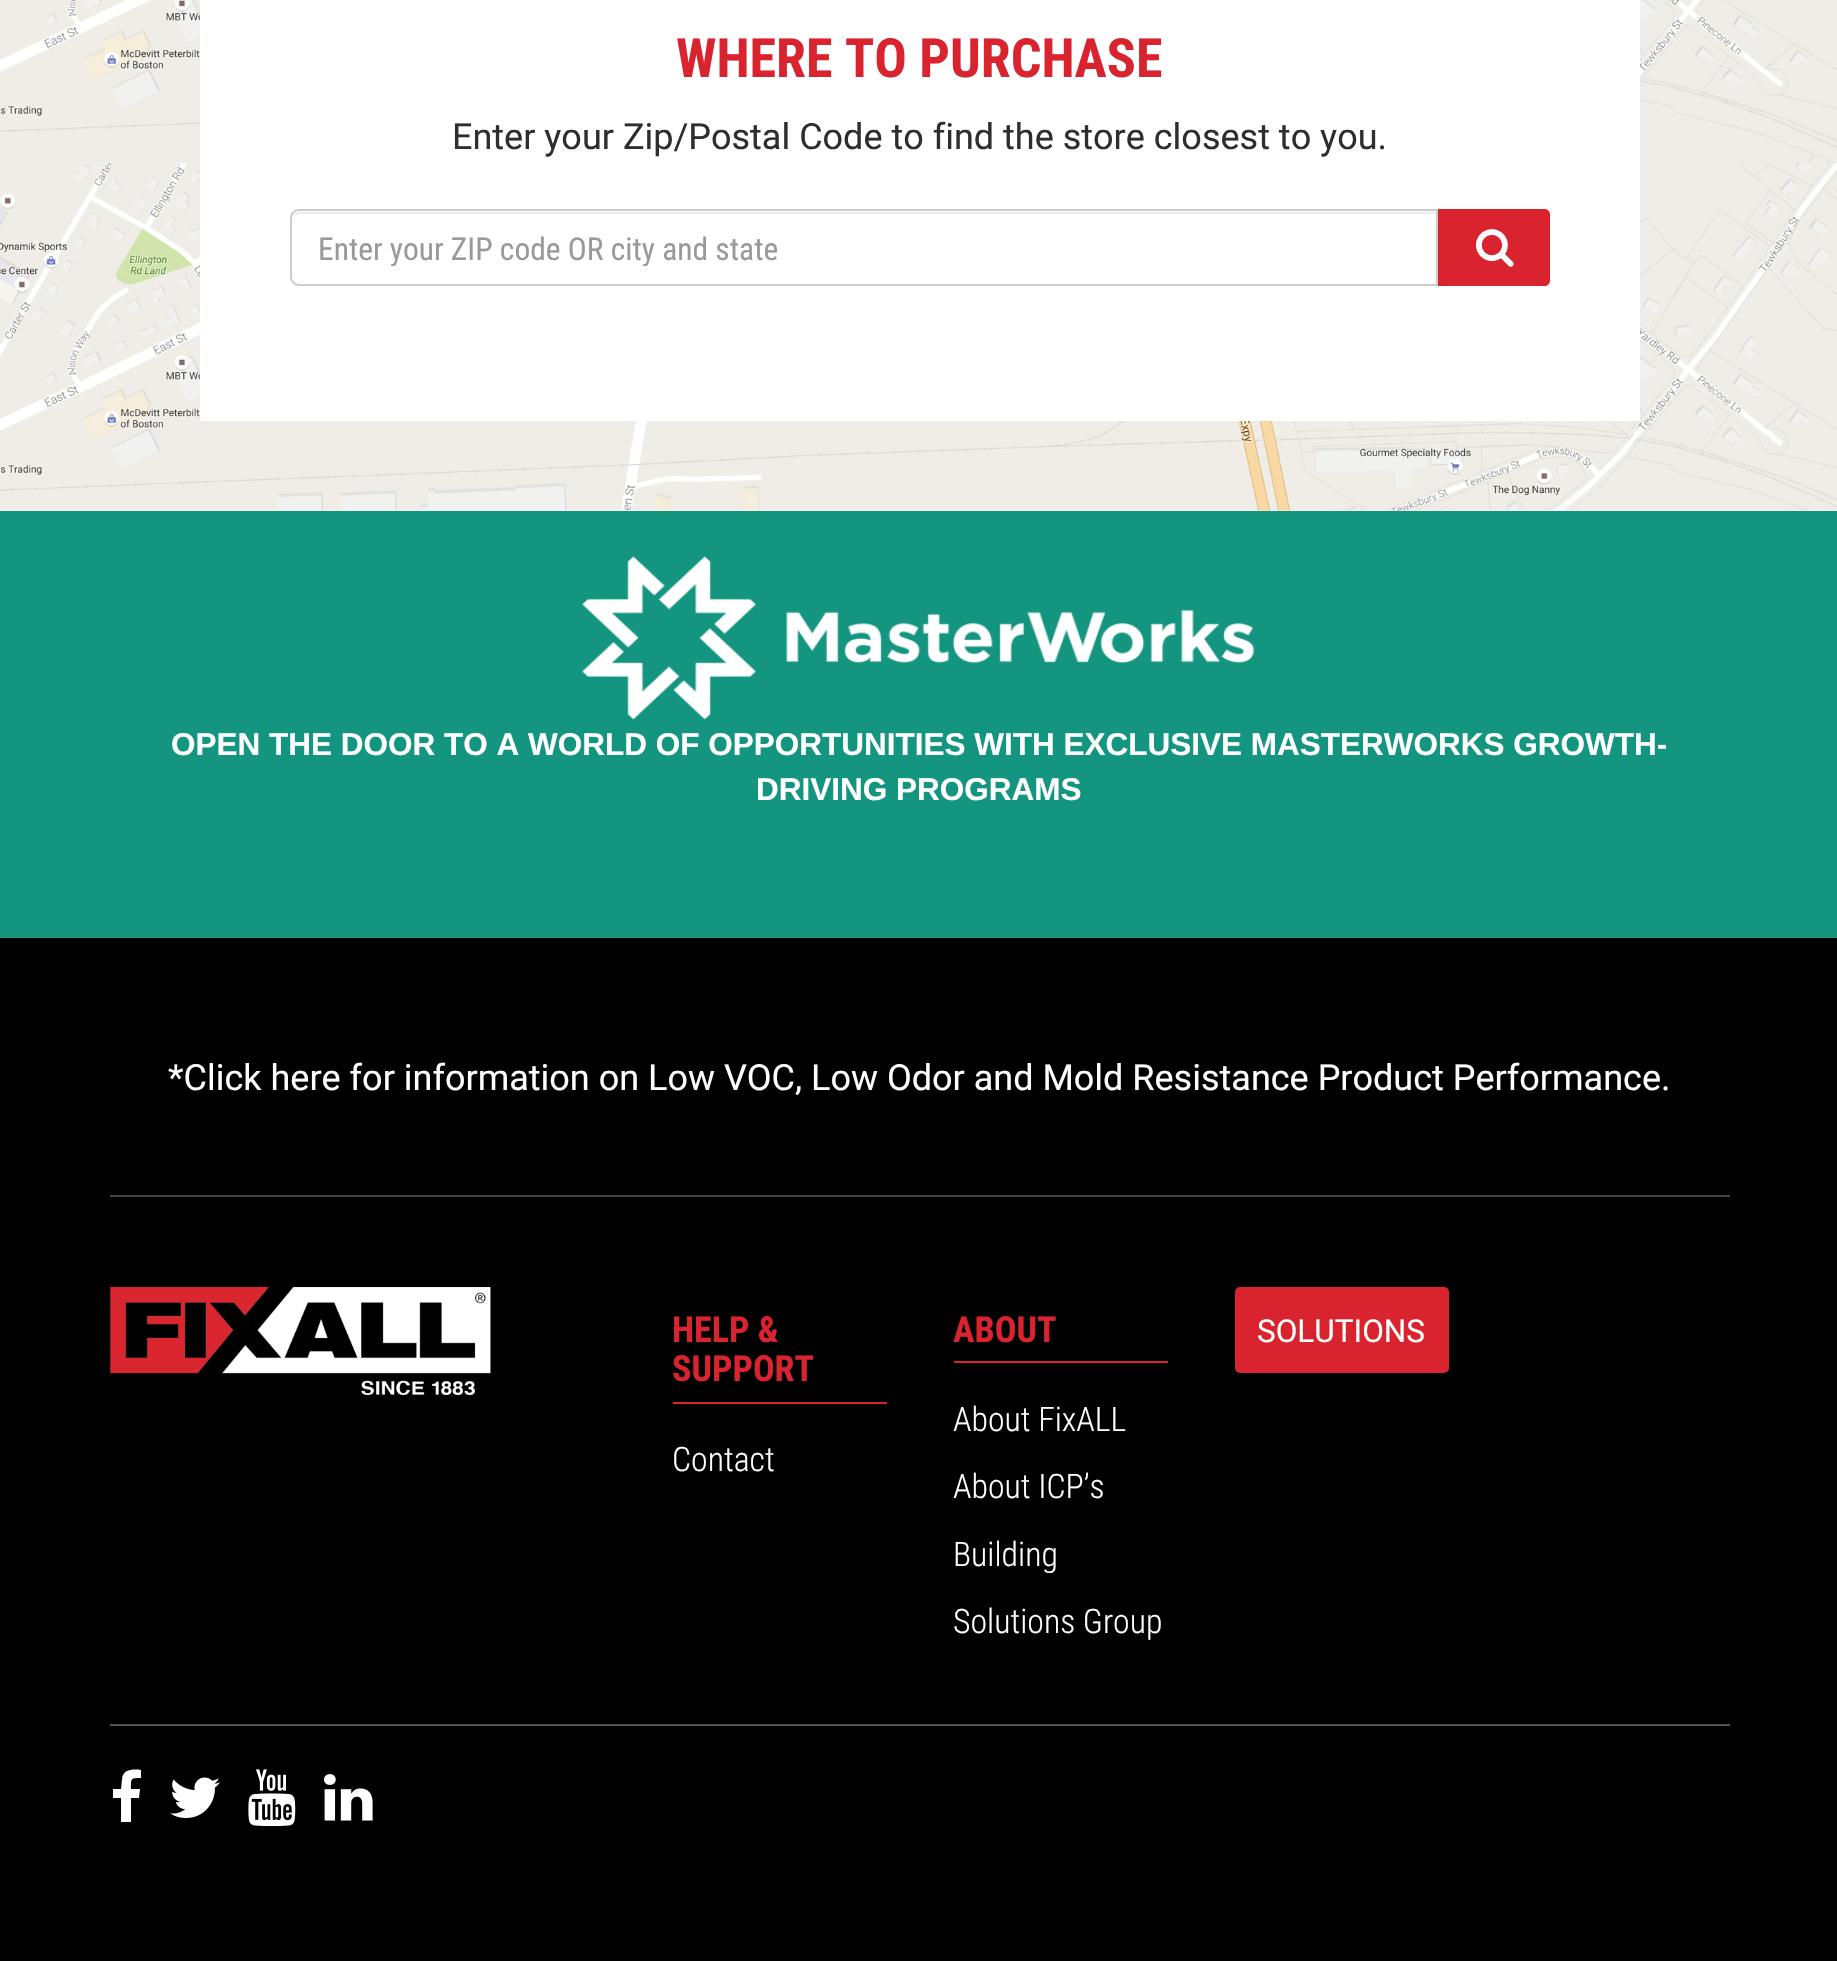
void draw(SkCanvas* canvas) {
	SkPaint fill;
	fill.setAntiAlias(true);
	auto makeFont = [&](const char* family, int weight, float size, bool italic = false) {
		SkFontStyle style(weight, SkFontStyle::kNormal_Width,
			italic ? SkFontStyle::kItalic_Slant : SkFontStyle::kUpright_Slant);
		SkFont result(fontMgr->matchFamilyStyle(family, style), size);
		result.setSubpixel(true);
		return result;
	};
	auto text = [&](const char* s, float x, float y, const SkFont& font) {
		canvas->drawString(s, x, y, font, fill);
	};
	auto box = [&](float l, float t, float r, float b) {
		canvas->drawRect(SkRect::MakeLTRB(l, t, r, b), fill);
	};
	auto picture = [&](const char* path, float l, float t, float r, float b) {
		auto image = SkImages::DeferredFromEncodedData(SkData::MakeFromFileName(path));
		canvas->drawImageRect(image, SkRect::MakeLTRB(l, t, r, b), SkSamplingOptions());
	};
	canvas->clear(0xFFFFFFFF);
	picture("image0.png", 0, 0, 1837, 511);
	fill.setColor(0xFFFFFFFF);
	box(200, 0, 1640, 421);
	fill.setColor(0xFFECECEC);
	canvas->drawPath(SkPathBuilder().moveTo(299, 214).lineTo(1436, 214).lineTo(1436, 212).lineTo(300, 212).cubicTo(297, 212, 294, 214, 293, 217).cubicTo(295, 215, 297, 214, 299, 214).close().detach(), fill);
	fill.setStyle(SkPaint::kStroke_Style);
	fill.setStrokeWidth(2);
	fill.setColor(0xFFCCCCCC);
	canvas->drawPath(SkPathBuilder().moveTo(299, 210).lineTo(1437, 210).lineTo(1437, 285).lineTo(299, 285).cubicTo(294.5f, 285, 291, 281.5f, 291, 277).lineTo(291, 218).cubicTo(291, 213.5f, 294.5f, 210, 299, 210).close().detach(), fill);
	fill.setStyle(SkPaint::kFill_Style);
	fill.setColor(0xFFD9232E);
	canvas->drawPath(SkPathBuilder().moveTo(1439, 210).lineTo(1545, 210).cubicTo(1547, 210, 1549, 212, 1549, 214).lineTo(1549, 281).cubicTo(1549, 283, 1547, 285, 1545, 285).lineTo(1439, 285).close().detach(), fill);
	fill.setStyle(SkPaint::kStroke_Style);
	canvas->drawPath(SkPathBuilder().moveTo(1439, 210).lineTo(1545, 210).cubicTo(1547, 210, 1549, 212, 1549, 214).lineTo(1549, 281).cubicTo(1549, 283, 1547, 285, 1545, 285).lineTo(1439, 285).close().detach(), fill);
	picture("image1.png", 1476, 229, 1514, 267);
	fill.setStyle(SkPaint::kFill_Style);
	fill.setColor(0xFF14957F);
	box(0, 511, 1837, 938);
	picture("image2.png", 581, 555, 1255, 720);
	fill.setColor(0xFF000000);
	box(0, 938, 1837, 1961);
	fill.setColor(0xFF444444);
	box(110, 1195, 1730, 1197);
	picture("image3.png", 110, 1287, 491, 1395);
	fill.setColor(0xFFD9232E);
	box(673, 1402, 887, 1404);
	box(954, 1361, 1168, 1363);
	canvas->drawRoundRect(SkRect::MakeLTRB(1236, 1288, 1448, 1372), 4, 4, fill);
	fill.setStyle(SkPaint::kStroke_Style);
	canvas->drawRoundRect(SkRect::MakeLTRB(1236, 1288, 1448, 1372), 4, 4, fill);
	fill.setStyle(SkPaint::kFill_Style);
	fill.setColor(0xFF535353);
	box(110, 1724, 1730, 1726);
	fill.setColor(0xFFFFFFFF);
	canvas->drawPath(SkPathBuilder().moveTo(141, 1770).lineTo(141, 1778).cubicTo(130, 1778, 131, 1779, 131, 1789).lineTo(140, 1789).lineTo(139, 1798).lineTo(131, 1798).lineTo(131, 1822).lineTo(121, 1822).lineTo(121, 1798).lineTo(113, 1798).lineTo(113, 1789).lineTo(121, 1789).lineTo(122, 1779).cubicTo(123, 1769, 133, 1769, 141, 1770).close().detach(), fill);
	picture("image4.png", 170, 1777, 220, 1818);
	picture("image5.png", 248, 1769, 296, 1827);
	picture("image6.png", 324, 1774, 373, 1821);
	auto font1 = makeFont("Roboto Condensed", 700, 54);
	fill.setColor(0xFFD9232E);
	text("WHERE TO PURCHASE", 676, 77, font1);
	auto font2 = makeFont("Roboto", 400, 36);
	fill.setColor(0xFF2E2E2E);
	text("Enter your Zip/Postal Code to find the store closest to you.", 452, 149, font2);
	canvas->save();
	canvas->clipRect(SkRect::MakeLTRB(320, 230, 1409, 266));
	auto font3 = makeFont("Roboto Condensed", 400, 31.5f);
	fill.setColor(0xFF999999);
	text("Enter your ZIP code OR city and state", 318, 260, font3);
	canvas->restore();
	auto font4 = makeFont("Liberation Sans", 700, 31.5f);
	fill.setColor(0xFFFFFFFF);
	text("OPEN THE DOOR TO A WORLD OF OPPORTUNITIES WITH EXCLUSIVE MASTERWORKS GROWTH-", 171, 755, font4);
	text("DRIVING PROGRAMS", 756, 800, font4);
	text("*Click here for information on Low VOC, Low Odor and Mold Resistance Product Performance.", 168, 1090, font2);
	auto font5 = makeFont("Roboto Condensed", 700, 36);
	fill.setColor(0xFFD9232E);
	text("HELP &", 672, 1342, font5);
	text("SUPPORT", 672, 1381, font5);
	auto font6 = makeFont("Roboto Condensed", 300, 33.75f);
	fill.setColor(0xFFFFFFFF);
	text("Contact", 672, 1471, font6);
	fill.setColor(0xFFD9232E);
	text("ABOUT", 953, 1342, font5);
	fill.setColor(0xFFFFFFFF);
	text("About FixALL", 953, 1431, font6);
	text("About ICP’s", 953, 1498, font6);
	text("Building", 953, 1566, font6);
	text("Solutions Group", 953, 1633, font6);
	auto font7 = makeFont("Roboto", 400, 31.5f);
	text("SOLUTIONS", 1257, 1342, font7);
}
